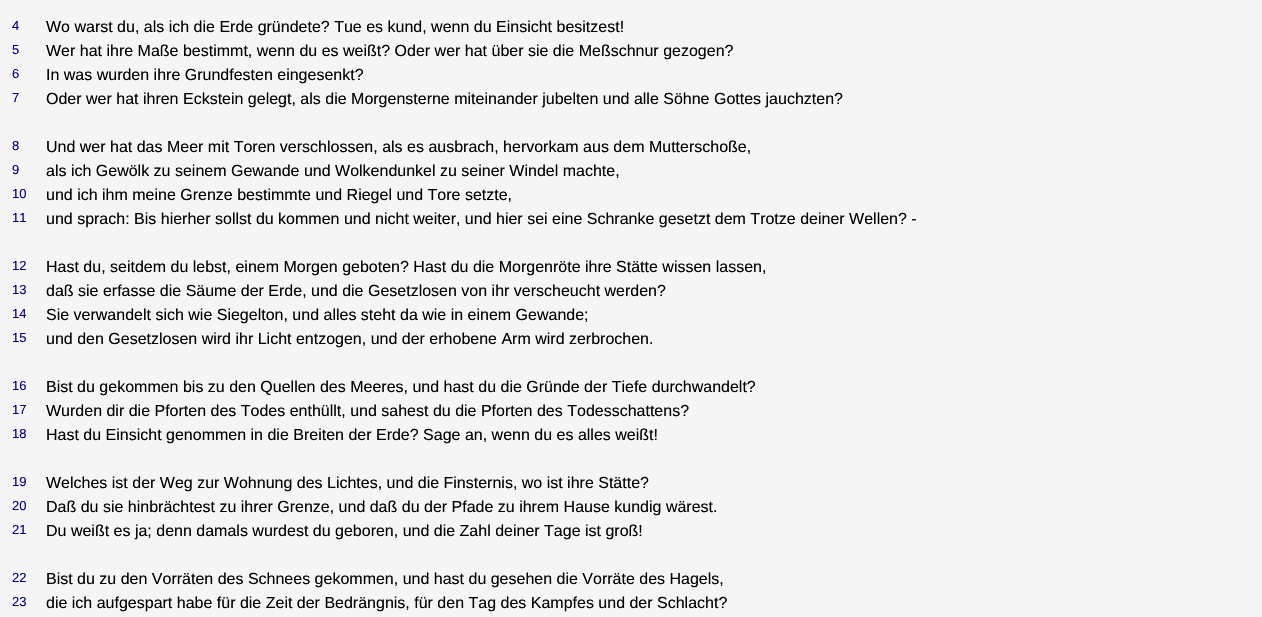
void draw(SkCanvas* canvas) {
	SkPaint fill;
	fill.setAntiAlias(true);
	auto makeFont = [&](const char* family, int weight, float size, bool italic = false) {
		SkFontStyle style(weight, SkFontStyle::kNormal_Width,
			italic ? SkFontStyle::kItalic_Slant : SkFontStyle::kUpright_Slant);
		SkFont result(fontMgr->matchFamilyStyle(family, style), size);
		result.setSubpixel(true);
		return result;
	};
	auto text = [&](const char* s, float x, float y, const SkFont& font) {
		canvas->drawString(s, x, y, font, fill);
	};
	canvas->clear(0xFFF5F5F5);
	auto font1 = makeFont("Liberation Sans", 400, 13);
	fill.setColor(0xFF000080);
	text("4", 12, 30, font1);
	auto font2 = makeFont("Liberation Sans", 400, 16);
	fill.setColor(0xFF000000);
	text("Wo warst du, als ich die Erde gründete? Tue es kund, wenn du Einsicht besitzest!", 46, 32, font2);
	fill.setColor(0xFF000080);
	text("5", 12, 54, font1);
	fill.setColor(0xFF000000);
	text("Wer hat ihre Maße bestimmt, wenn du es weißt? Oder wer hat über sie die Meßschnur gezogen?", 46, 56, font2);
	fill.setColor(0xFF000080);
	text("6", 12, 78, font1);
	fill.setColor(0xFF000000);
	text("In was wurden ihre Grundfesten eingesenkt?", 46, 80, font2);
	fill.setColor(0xFF000080);
	text("7", 12, 102, font1);
	fill.setColor(0xFF000000);
	text("Oder wer hat ihren Eckstein gelegt, als die Morgensterne miteinander jubelten und alle Söhne Gottes jauchzten?", 46, 104, font2);
	fill.setColor(0xFF000080);
	text("8", 12, 150, font1);
	fill.setColor(0xFF000000);
	text("Und wer hat das Meer mit Toren verschlossen, als es ausbrach, hervorkam aus dem Mutterschoße,", 46, 152, font2);
	fill.setColor(0xFF000080);
	text("9", 12, 174, font1);
	fill.setColor(0xFF000000);
	text("als ich Gewölk zu seinem Gewande und Wolkendunkel zu seiner Windel machte,", 46, 176, font2);
	fill.setColor(0xFF000080);
	text("10", 12, 198, font1);
	fill.setColor(0xFF000000);
	text("und ich ihm meine Grenze bestimmte und Riegel und Tore setzte,", 46, 200, font2);
	fill.setColor(0xFF000080);
	text("11", 12, 222, font1);
	fill.setColor(0xFF000000);
	text("und sprach: Bis hierher sollst du kommen und nicht weiter, und hier sei eine Schranke gesetzt dem Trotze deiner Wellen? -", 46, 224, font2);
	fill.setColor(0xFF000080);
	text("12", 12, 270, font1);
	fill.setColor(0xFF000000);
	text("Hast du, seitdem du lebst, einem Morgen geboten? Hast du die Morgenröte ihre Stätte wissen lassen,", 46, 272, font2);
	fill.setColor(0xFF000080);
	text("13", 12, 294, font1);
	fill.setColor(0xFF000000);
	text("daß sie erfasse die Säume der Erde, und die Gesetzlosen von ihr verscheucht werden?", 46, 296, font2);
	fill.setColor(0xFF000080);
	text("14", 12, 318, font1);
	fill.setColor(0xFF000000);
	text("Sie verwandelt sich wie Siegelton, und alles steht da wie in einem Gewande;", 46, 320, font2);
	fill.setColor(0xFF000080);
	text("15", 12, 342, font1);
	fill.setColor(0xFF000000);
	text("und den Gesetzlosen wird ihr Licht entzogen, und der erhobene Arm wird zerbrochen.", 46, 344, font2);
	fill.setColor(0xFF000080);
	text("16", 12, 390, font1);
	fill.setColor(0xFF000000);
	text("Bist du gekommen bis zu den Quellen des Meeres, und hast du die Gründe der Tiefe durchwandelt?", 46, 392, font2);
	fill.setColor(0xFF000080);
	text("17", 12, 414, font1);
	fill.setColor(0xFF000000);
	text("Wurden dir die Pforten des Todes enthüllt, und sahest du die Pforten des Todesschattens?", 46, 416, font2);
	fill.setColor(0xFF000080);
	text("18", 12, 438, font1);
	fill.setColor(0xFF000000);
	text("Hast du Einsicht genommen in die Breiten der Erde? Sage an, wenn du es alles weißt!", 46, 440, font2);
	fill.setColor(0xFF000080);
	text("19", 12, 486, font1);
	fill.setColor(0xFF000000);
	text("Welches ist der Weg zur Wohnung des Lichtes, und die Finsternis, wo ist ihre Stätte?", 46, 488, font2);
	fill.setColor(0xFF000080);
	text("20", 12, 510, font1);
	fill.setColor(0xFF000000);
	text("Daß du sie hinbrächtest zu ihrer Grenze, und daß du der Pfade zu ihrem Hause kundig wärest.", 46, 512, font2);
	fill.setColor(0xFF000080);
	text("21", 12, 534, font1);
	fill.setColor(0xFF000000);
	text("Du weißt es ja; denn damals wurdest du geboren, und die Zahl deiner Tage ist groß!", 46, 536, font2);
	fill.setColor(0xFF000080);
	text("22", 12, 582, font1);
	fill.setColor(0xFF000000);
	text("Bist du zu den Vorräten des Schnees gekommen, und hast du gesehen die Vorräte des Hagels,", 46, 584, font2);
	fill.setColor(0xFF000080);
	text("23", 12, 606, font1);
	fill.setColor(0xFF000000);
	text("die ich aufgespart habe für die Zeit der Bedrängnis, für den Tag des Kampfes und der Schlacht?", 46, 608, font2);
}
